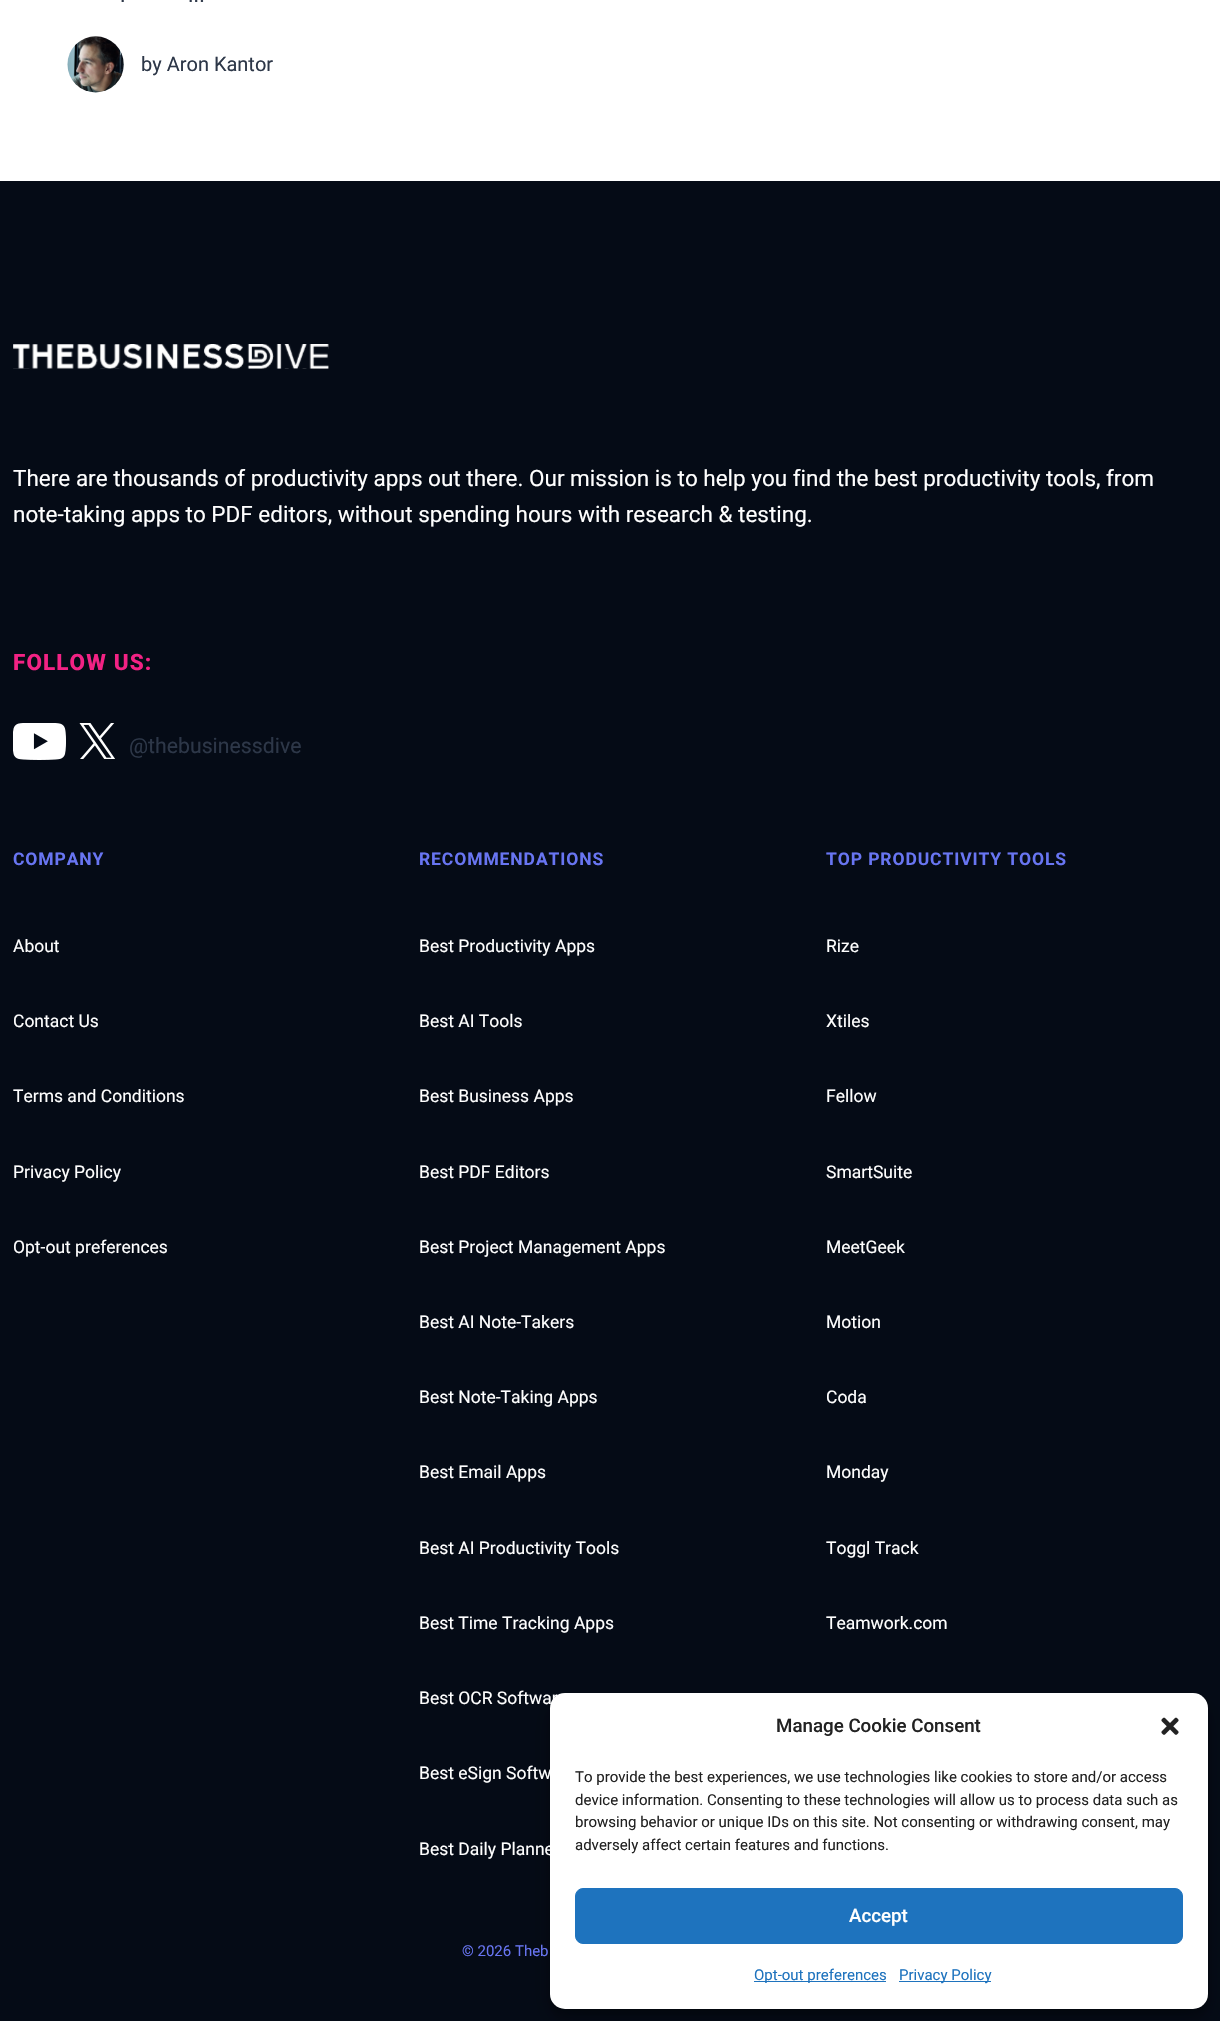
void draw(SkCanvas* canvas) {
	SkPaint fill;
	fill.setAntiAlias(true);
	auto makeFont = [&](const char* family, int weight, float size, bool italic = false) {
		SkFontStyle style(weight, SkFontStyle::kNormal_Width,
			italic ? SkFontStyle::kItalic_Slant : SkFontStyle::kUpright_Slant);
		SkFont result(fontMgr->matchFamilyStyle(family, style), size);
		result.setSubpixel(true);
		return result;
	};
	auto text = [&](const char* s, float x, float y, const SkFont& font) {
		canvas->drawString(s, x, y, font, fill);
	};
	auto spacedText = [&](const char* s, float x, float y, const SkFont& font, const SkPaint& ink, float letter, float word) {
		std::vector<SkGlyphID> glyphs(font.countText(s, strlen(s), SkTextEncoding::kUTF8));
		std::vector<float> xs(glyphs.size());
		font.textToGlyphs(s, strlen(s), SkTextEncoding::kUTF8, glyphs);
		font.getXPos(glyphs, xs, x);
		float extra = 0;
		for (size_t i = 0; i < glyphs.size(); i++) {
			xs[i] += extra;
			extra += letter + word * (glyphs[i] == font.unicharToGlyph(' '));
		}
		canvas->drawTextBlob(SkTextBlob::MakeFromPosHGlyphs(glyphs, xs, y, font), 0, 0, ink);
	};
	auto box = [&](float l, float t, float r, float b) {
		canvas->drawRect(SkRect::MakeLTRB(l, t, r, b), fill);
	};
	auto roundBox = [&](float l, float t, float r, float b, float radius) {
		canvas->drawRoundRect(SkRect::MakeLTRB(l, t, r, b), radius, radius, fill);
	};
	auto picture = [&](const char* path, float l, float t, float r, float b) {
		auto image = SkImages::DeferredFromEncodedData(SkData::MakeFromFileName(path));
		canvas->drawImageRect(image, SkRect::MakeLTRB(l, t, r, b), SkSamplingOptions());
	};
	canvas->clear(0xFFFFFFFF);
	picture("image0.png", 67, 36, 124, 93);
	fill.setColor(0xFF050B16);
	box(0, 181, 1220, 2021);
	picture("image1.png", 13, 344, 329, 369);
	picture("image2.png", 13, 723, 66, 760);
	picture("image3.png", 79, 723, 115, 759);
	fill.setColor(0x3B000000);
	fill.setMaskFilter(SkMaskFilter::MakeBlur(kNormal_SkBlurStyle, 4));
	canvas->drawRoundRect(SkRect::MakeLTRB(550, 1700, 1208, 2016), 15, 15, fill);
	fill.setMaskFilter(nullptr);
	fill.setColor(0x30000000);
	fill.setMaskFilter(SkMaskFilter::MakeBlur(kNormal_SkBlurStyle, 12.5f));
	canvas->drawRoundRect(SkRect::MakeLTRB(550, 1705, 1208, 2021), 15, 15, fill);
	fill.setMaskFilter(nullptr);
	fill.setColor(0xFFFFFFFF);
	roundBox(550, 1693, 1208, 2009, 15);
	picture("image4.png", 1161, 1717, 1179, 1735);
	fill.setColor(0xFF1E73BE);
	canvas->drawRoundRect(SkRect::MakeLTRB(575.5f, 1888.5f, 1182.5f, 1943.5f), 7.5f, 7.5f, fill);
	fill.setStyle(SkPaint::kStroke_Style);
	fill.setStrokeWidth(1);
	canvas->drawRoundRect(SkRect::MakeLTRB(575.5f, 1888.5f, 1182.5f, 1943.5f), 7.5f, 7.5f, fill);
	fill.setStyle(SkPaint::kFill_Style);
	box(754, 1981, 886, 1982);
	box(899, 1981, 991, 1982);
	auto font1 = makeFont("Roboto", 400, 21.25f);
	fill.setColor(0xFF2D3748);
	text(".", 120, 2, font1);
	text("...", 188, 2, font1);
	auto font2 = makeFont("Roboto", 400, 20);
	text("by Aron Kantor", 141, 71, font2);
	auto font3 = makeFont("Roboto", 400, 22.5f);
	fill.setColor(0xFFFFFFFF);
	text("There are thousands of productivity apps out there. Our mission is to help you find the best productivity tools, from", 13, 486, font3);
	text("note-taking apps to PDF editors, without spending hours with research & testing.", 13, 522, font3);
	auto font4 = makeFont("Roboto", 800, 22.5f);
	fill.setColor(0xFFF32284);
	spacedText("FOLLOW US:", 13, 670, font4, fill, 1.1f, 0);
	fill.setColor(0xFF2D3748);
	text("@thebusinessdive", 129, 753, font1);
	auto font5 = makeFont("Roboto", 700, 17.5f);
	fill.setColor(0xFF6875F2);
	spacedText("COMPANY", 13, 865, font5, fill, 0.9f, 0);
	auto font6 = makeFont("Roboto", 400, 17.5f);
	fill.setColor(0xFFFFFFFF);
	text("About", 13, 952, font6);
	text("Contact Us", 13, 1027, font6);
	text("Terms and Conditions", 13, 1102, font6);
	text("Privacy Policy", 13, 1178, font6);
	text("Opt-out preferences", 13, 1253, font6);
	fill.setColor(0xFF6875F2);
	spacedText("RECOMMENDATIONS", 419, 865, font5, fill, 0.9f, 0);
	fill.setColor(0xFFFFFFFF);
	text("Best Productivity Apps", 419, 952, font6);
	text("Best AI Tools", 419, 1027, font6);
	text("Best Business Apps", 419, 1102, font6);
	text("Best PDF Editors", 419, 1178, font6);
	text("Best Project Management Apps", 419, 1253, font6);
	text("Best AI Note-Takers", 419, 1328, font6);
	text("Best Note-Taking Apps", 419, 1403, font6);
	text("Best Email Apps", 419, 1478, font6);
	text("Best AI Productivity Tools", 419, 1554, font6);
	text("Best Time Tracking Apps", 419, 1629, font6);
	text("Best OCR Softwar", 419, 1704, font6);
	text("Best eSign Softw", 419, 1779, font6);
	text("Best Daily Planne", 419, 1855, font6);
	fill.setColor(0xFF6875F2);
	spacedText("TOP PRODUCTIVITY TOOLS", 826, 865, font5, fill, 0.9f, 0);
	fill.setColor(0xFFFFFFFF);
	text("Rize", 826, 952, font6);
	text("Xtiles", 826, 1027, font6);
	text("Fellow", 826, 1102, font6);
	text("SmartSuite", 826, 1178, font6);
	text("MeetGeek", 826, 1253, font6);
	text("Motion", 826, 1328, font6);
	text("Coda", 826, 1403, font6);
	text("Monday", 826, 1478, font6);
	text("Toggl Track", 826, 1554, font6);
	text("Teamwork.com", 826, 1629, font6);
	auto font7 = makeFont("Roboto", 400, 15);
	fill.setColor(0xFF6875F2);
	text("© 2026 Theb", 462, 1956, font7);
	auto font8 = makeFont("Roboto", 500, 18.75f);
	fill.setColor(0xFF222222);
	text("Manage Cookie Consent", 776, 1732, font8);
	text("To provide the best experiences, we use technologies like cookies to store and/or access", 575, 1782, font7);
	text("device information. Consenting to these technologies will allow us to process data such as", 575, 1805, font7);
	text("browsing behavior or unique IDs on this site. Not consenting or withdrawing consent, may", 575, 1827, font7);
	text("adversely affect certain features and functions.", 575, 1850, font7);
	fill.setColor(0xFFFFFFFF);
	text("Accept", 849, 1922, font8);
	fill.setColor(0xFF1E73BE);
	text("Opt-out preferences", 754, 1980, font7);
	text("Privacy Policy", 899, 1980, font7);
}
